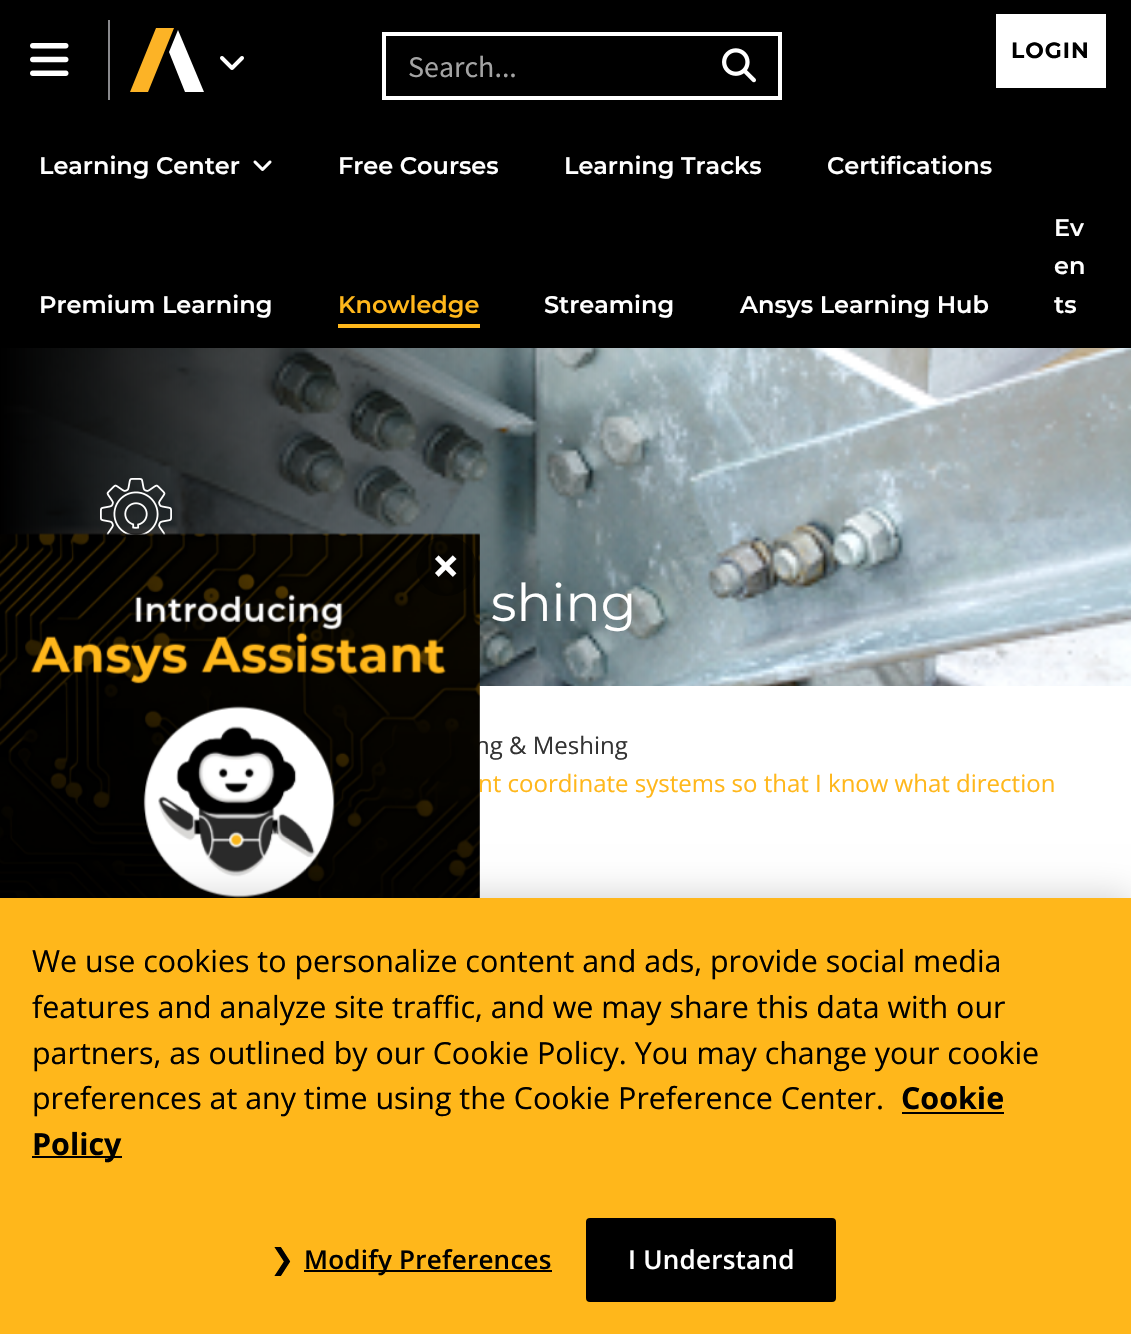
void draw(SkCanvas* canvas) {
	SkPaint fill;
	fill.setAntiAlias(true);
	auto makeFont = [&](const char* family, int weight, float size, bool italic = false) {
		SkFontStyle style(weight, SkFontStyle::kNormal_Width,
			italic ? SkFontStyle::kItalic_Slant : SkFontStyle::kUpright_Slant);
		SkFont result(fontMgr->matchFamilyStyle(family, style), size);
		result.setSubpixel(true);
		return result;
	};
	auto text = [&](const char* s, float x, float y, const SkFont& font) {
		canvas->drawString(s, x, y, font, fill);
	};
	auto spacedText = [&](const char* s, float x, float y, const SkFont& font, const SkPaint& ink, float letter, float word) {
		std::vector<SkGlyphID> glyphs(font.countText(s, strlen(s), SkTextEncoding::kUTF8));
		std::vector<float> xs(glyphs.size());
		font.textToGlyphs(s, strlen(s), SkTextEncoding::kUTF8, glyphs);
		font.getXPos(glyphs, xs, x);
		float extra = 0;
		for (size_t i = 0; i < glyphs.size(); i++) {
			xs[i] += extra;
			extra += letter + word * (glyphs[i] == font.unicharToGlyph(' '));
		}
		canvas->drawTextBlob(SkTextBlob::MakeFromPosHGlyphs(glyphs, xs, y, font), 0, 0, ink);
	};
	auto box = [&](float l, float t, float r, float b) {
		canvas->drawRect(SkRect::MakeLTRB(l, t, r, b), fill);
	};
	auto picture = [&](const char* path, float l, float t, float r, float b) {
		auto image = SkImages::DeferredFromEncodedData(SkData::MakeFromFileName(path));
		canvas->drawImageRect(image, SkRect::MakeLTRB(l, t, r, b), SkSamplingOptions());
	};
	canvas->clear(0xFFFFFFFF);
	fill.setColor(0xFF000000);
	box(0, 0, 1131, 348);
	picture("image0.png", 30, 43, 69, 76);
	fill.setColor(0xFF898A8D);
	box(108, 20, 110, 100);
	fill.setColor(0xFFFCB326);
	canvas->drawPath(SkPathBuilder().moveTo(130, 92).lineTo(156, 28).lineTo(174, 28).lineTo(148, 92).close().detach(), fill);
	fill.setColor(0xFFFFFFFF);
	canvas->drawPath(SkPathBuilder().moveTo(204, 92).lineTo(185, 92).lineTo(169, 52).lineTo(178, 30).close().detach(), fill);
	picture("image1.png", 220, 56, 244, 70);
	box(996, 14, 1106, 88);
	fill.setStyle(SkPaint::kStroke_Style);
	fill.setStrokeWidth(4);
	canvas->drawRect(SkRect::MakeLTRB(384, 34, 780, 98), fill);
	picture("image2.png", 722, 48, 756, 83);
	picture("image3.png", 253, 160, 272, 171);
	fill.setStyle(SkPaint::kFill_Style);
	fill.setColor(0xFFFFB71B);
	box(338, 324, 480, 328);
	picture("image4.png", 0, 348, 1131, 686);
	picture("image5.png", 100, 478, 172, 535);
	auto font1 = makeFont("Montserrat", 700, 22);
	fill.setColor(0xFF000000);
	spacedText("LOGIN", 1011, 58, font1, fill, 1, 0);
	auto font2 = makeFont("Source Sans Pro", 400, 30);
	fill.setColor(0xFFA4A4A4);
	text("Search...", 408, 77, font2);
	auto font3 = makeFont("Montserrat", 600, 24);
	fill.setColor(0xFFFFFFFF);
	text("Learning Center", 39, 174, font3);
	text("Free Courses", 338, 174, font3);
	text("Learning Tracks", 564, 174, font3);
	text("Certifications", 827, 174, font3);
	text("Premium Learning", 39, 313, font3);
	fill.setColor(0xFFFFB71B);
	text("Knowledge", 338, 313, font3);
	fill.setColor(0xFFFFFFFF);
	text("Streaming", 544, 313, font3);
	text("Ansys Learning Hub", 740, 313, font3);
	text("Ev", 1054, 236, font3);
	text("en", 1054, 274, font3);
	text("ts", 1054, 313, font3);
	auto font4 = makeFont("Montserrat", 400, 52);
	text("shing", 491, 621, font4);
	auto font5 = makeFont("Open Sans", 400, 24);
	fill.setColor(0xFF333333);
	text("ng & Meshing", 475, 754, font5);
	fill.setColor(0xFFFFB71B);
	text("nt coordinate systems so that I know what direction", 478, 792, font5);
	picture("image6.png", 0, 533, 480, 898);
	fill.setColor(0x38000000);
	fill.setMaskFilter(SkMaskFilter::MakeBlur(kNormal_SkBlurStyle, 10));
	canvas->drawRect(SkRect::MakeLTRB(-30, 110, 0, 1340), fill);
	fill.setMaskFilter(nullptr);
	fill.setColor(0x80000000);
	canvas->drawCircle(446, 566, 30, fill);
	auto font6 = makeFont("Open Sans", 700, 48);
	fill.setColor(0xFFFFFFFF);
	text("×", 432, 583, font6);
	fill.setColor(0x33000000);
	fill.setMaskFilter(SkMaskFilter::MakeBlur(kNormal_SkBlurStyle, 18));
	canvas->drawRect(SkRect::MakeLTRB(0, 898, 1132, 1334), fill);
	fill.setMaskFilter(nullptr);
	fill.setColor(0xFFFFB71B);
	box(0, 898, 1131, 1334);
	auto font7 = makeFont("Open Sans", 400, 30.4f);
	fill.setColor(0xFF000000);
	text("We use cookies to personalize content and ads, provide social media", 32, 972, font7);
	text("features and analyze site traffic, and we may share this data with our", 32, 1018, font7);
	text("partners, as outlined by our Cookie Policy. You may change your cookie", 32, 1064, font7);
	text("preferences at any time using the Cookie Preference Center.", 32, 1109, font7);
	auto font8 = makeFont("Open Sans", 700, 30.4f);
	text("Cookie", 901, 1109, font8);
	box(902, 1112, 1004, 1114);
	box(32, 1156, 122, 1158);
	text("Policy", 32, 1155, font8);
	auto font9 = makeFont("DejaVu Sans", 400, 29);
	spacedText("❯", 270, 1269, font9, fill, 0.25f, 0);
	box(304, 1270, 552, 1272);
	auto font10 = makeFont("Open Sans", 600, 26);
	spacedText("Modify Preferences", 304, 1269, font10, fill, 0.25f, 0);
	canvas->drawRoundRect(SkRect::MakeLTRB(587, 1219, 835, 1301), 3, 3, fill);
	fill.setStyle(SkPaint::kStroke_Style);
	fill.setStrokeWidth(2);
	canvas->drawRoundRect(SkRect::MakeLTRB(587, 1219, 835, 1301), 3, 3, fill);
	fill.setStyle(SkPaint::kFill_Style);
	fill.setColor(0xFFFFFFFF);
	spacedText("I Understand", 628, 1269, font10, fill, 0.25f, 0);
}
